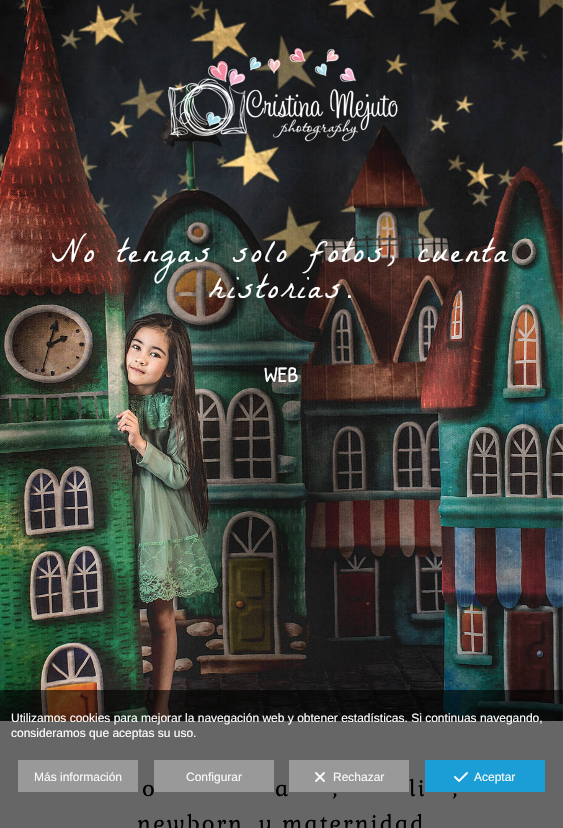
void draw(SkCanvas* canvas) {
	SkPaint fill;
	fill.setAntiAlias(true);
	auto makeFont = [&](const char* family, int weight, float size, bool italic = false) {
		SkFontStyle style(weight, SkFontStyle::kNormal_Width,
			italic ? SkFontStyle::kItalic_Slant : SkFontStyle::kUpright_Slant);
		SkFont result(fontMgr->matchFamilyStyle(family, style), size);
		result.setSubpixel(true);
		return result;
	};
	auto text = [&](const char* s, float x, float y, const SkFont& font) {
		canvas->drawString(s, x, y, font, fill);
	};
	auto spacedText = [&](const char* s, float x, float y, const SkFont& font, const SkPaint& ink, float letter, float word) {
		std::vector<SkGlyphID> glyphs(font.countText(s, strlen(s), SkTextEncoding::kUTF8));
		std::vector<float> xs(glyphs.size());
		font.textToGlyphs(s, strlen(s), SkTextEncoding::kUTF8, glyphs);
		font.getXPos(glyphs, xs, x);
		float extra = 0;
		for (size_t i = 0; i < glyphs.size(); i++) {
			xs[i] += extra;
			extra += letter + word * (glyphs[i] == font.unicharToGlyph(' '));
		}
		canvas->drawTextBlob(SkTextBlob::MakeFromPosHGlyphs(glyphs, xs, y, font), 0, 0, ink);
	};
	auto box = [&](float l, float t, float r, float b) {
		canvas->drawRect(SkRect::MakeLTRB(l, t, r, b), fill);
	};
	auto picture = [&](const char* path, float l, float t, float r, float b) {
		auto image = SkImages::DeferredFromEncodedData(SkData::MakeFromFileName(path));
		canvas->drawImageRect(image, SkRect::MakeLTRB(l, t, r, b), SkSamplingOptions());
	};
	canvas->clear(0xFFFFFFFF);
	picture("image0.png", 0, 0, 563, 721);
	picture("image1.png", 168, 48, 398, 142);
	auto font1 = makeFont("La Belle Aurore", 400, 33);
	fill.setColor(0xFFFFFFFF);
	spacedText("No tengas solo fotos, cuenta", 52, 262, font1, fill, 3, 0);
	spacedText("historias.", 209, 298, font1, fill, 3, 0);
	auto font2 = makeFont("Patrick Hand", 400, 22);
	text("WEB", 264, 382, font2);
	auto font3 = makeFont("Gabriela", 400, 22);
	fill.setColor(0xFF000000);
	spacedText("o", 142, 796, font3, fill, 2, 0);
	spacedText("a", 275, 796, font3, fill, 2, 0);
	spacedText(",", 333, 796, font3, fill, 2, 0);
	spacedText("li", 409, 796, font3, fill, 2, 0);
	spacedText(",", 453, 796, font3, fill, 2, 0);
	spacedText("newborn, y maternidad", 137, 831, font3, fill, 2, 0);
	fill.setColor(0x99000000);
	box(0, 690, 563, 828);
	auto font4 = makeFont("Liberation Sans", 400, 12);
	fill.setColor(0xFFFFFFFF);
	text("Utilizamos cookies para mejorar la navegación web y obtener estadísticas. Si continuas navegando,", 11, 722, font4);
	text("consideramos que aceptas su uso.", 11, 737, font4);
	fill.setColor(0xFF999999);
	box(18, 760, 138, 792);
	fill.setColor(0xFFF9F9F9);
	text("Más información", 34, 781, font4);
	fill.setColor(0xFF999999);
	box(154, 760, 274, 792);
	fill.setColor(0xFFF9F9F9);
	text("Configurar", 186, 781, font4);
	fill.setColor(0xFF999999);
	box(289, 760, 409, 792);
	picture("image2.png", 315, 772, 325, 782);
	fill.setColor(0xFFF9F9F9);
	text("Rechazar", 333, 781, font4);
	fill.setColor(0xFF1A9ED5);
	box(425, 760, 545, 792);
	picture("image3.png", 454, 772, 468, 782);
	fill.setColor(0xFFF9F9F9);
	text("Aceptar", 474, 781, font4);
}
